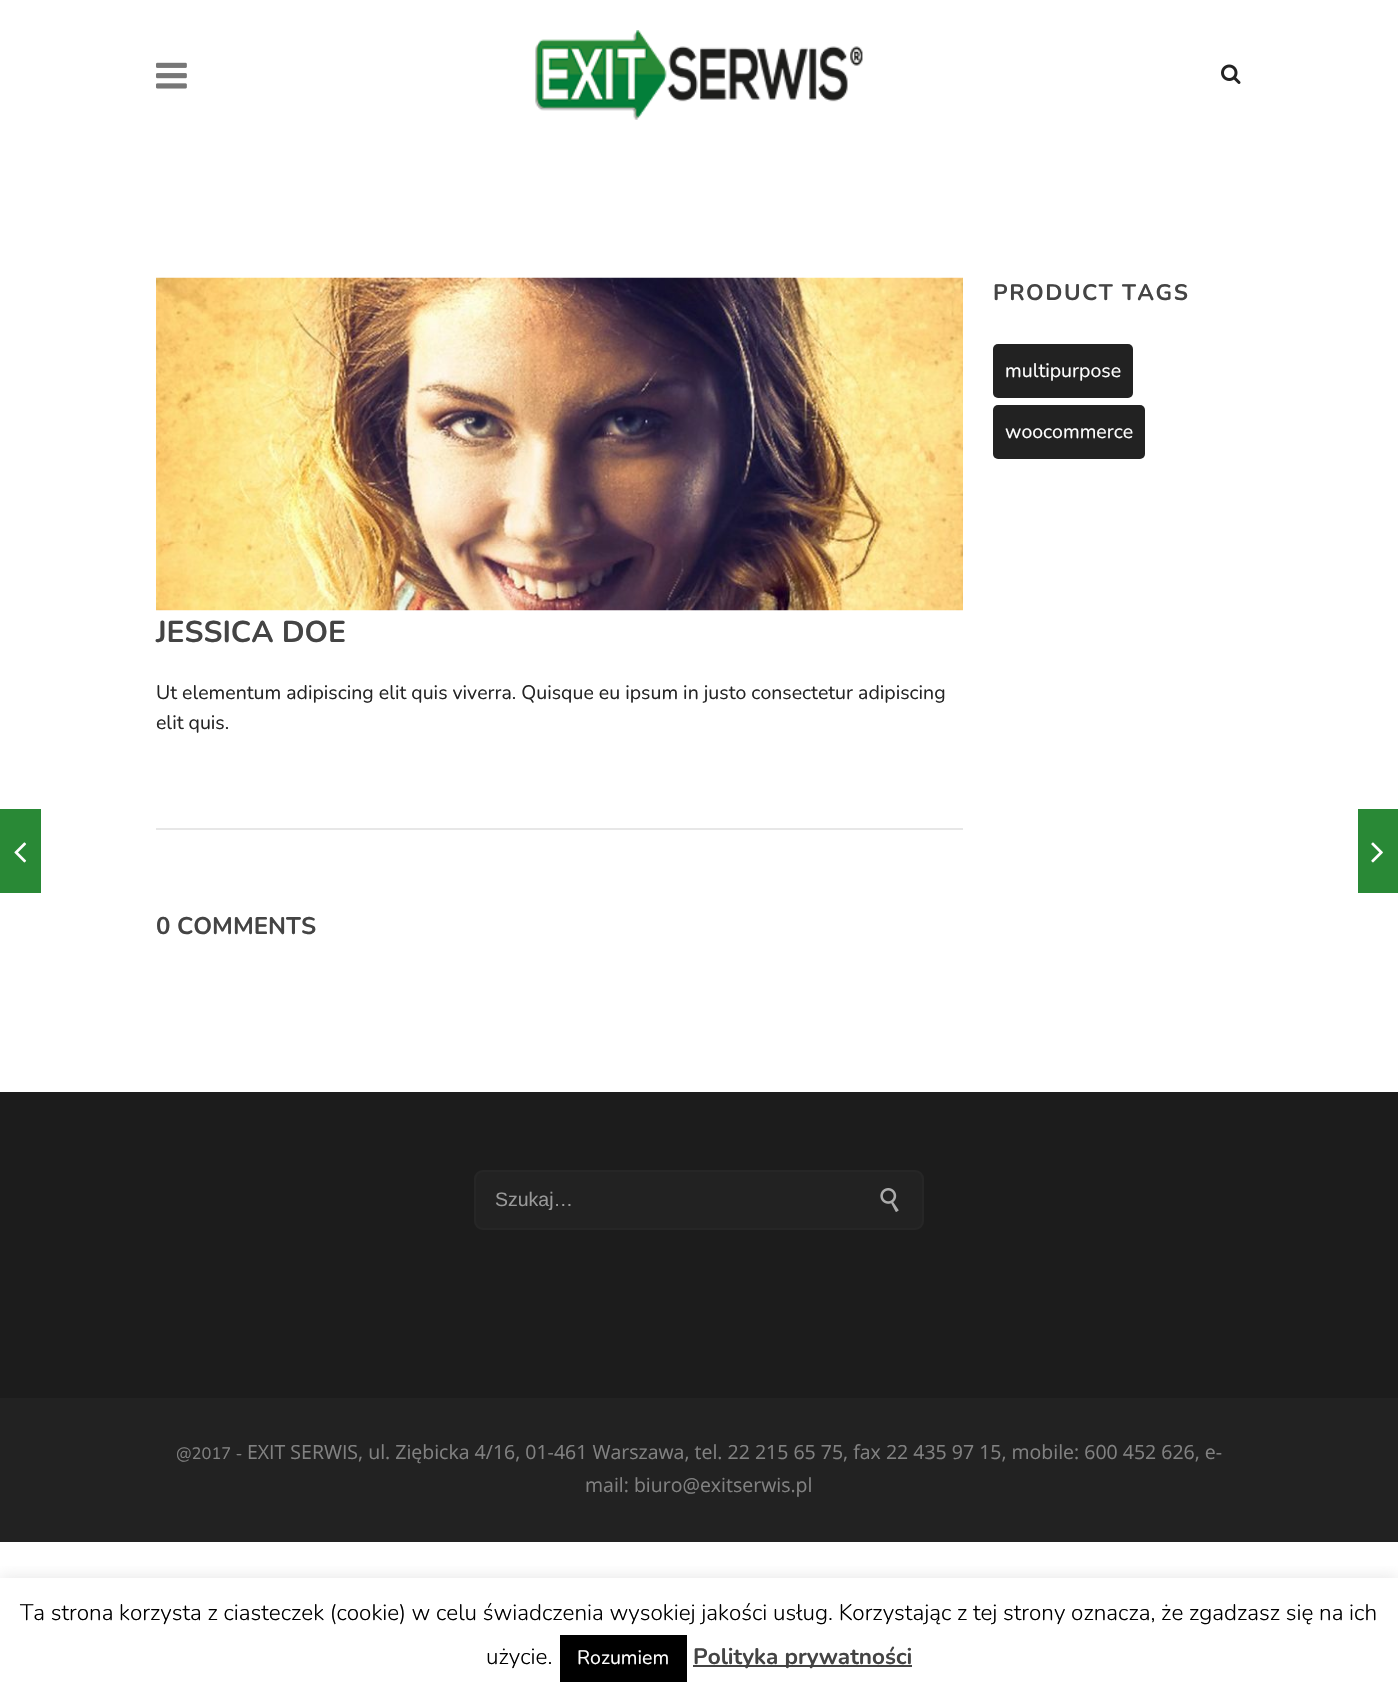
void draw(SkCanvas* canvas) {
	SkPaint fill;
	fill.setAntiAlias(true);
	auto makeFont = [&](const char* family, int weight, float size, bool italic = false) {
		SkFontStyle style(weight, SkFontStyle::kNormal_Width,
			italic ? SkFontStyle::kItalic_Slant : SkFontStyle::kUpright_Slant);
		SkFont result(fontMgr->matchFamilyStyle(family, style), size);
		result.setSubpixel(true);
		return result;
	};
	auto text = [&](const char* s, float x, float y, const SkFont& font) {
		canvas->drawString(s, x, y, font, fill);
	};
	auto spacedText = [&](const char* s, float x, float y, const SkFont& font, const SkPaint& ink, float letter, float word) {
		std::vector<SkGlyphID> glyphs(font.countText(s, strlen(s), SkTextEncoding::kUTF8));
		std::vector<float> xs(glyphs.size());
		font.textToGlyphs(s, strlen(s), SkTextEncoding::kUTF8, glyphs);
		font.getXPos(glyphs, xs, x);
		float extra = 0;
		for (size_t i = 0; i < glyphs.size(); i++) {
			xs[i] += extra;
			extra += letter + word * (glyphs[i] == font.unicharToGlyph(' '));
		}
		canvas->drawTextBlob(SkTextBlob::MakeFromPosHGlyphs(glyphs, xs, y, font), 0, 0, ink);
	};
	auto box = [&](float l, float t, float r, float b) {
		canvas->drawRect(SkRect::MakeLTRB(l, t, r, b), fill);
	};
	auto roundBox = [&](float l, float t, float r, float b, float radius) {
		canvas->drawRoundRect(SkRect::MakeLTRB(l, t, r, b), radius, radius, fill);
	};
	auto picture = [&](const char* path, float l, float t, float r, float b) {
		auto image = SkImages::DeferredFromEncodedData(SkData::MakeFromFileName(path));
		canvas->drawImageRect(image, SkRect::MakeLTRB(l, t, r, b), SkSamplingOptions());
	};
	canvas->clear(0xFFFFFFFF);
	picture("image0.png", 156, 62, 187, 89);
	picture("image1.png", 535, 30, 863, 120);
	picture("image2.png", 1221, 64, 1241, 84);
	fill.setColor(0xFF222222);
	roundBox(993, 344, 1133, 398, 5);
	roundBox(993, 405, 1145, 459, 5);
	picture("image3.png", 156, 277, 963, 611);
	fill.setColor(0xFFE7E7E7);
	box(156, 828, 963, 830);
	fill.setColor(0xFF298936);
	box(0, 809, 41, 893);
	picture("image4.png", 14, 842, 27, 863);
	box(1358, 809, 1398, 893);
	picture("image5.png", 1371, 842, 1383, 863);
	fill.setColor(0xFF1C1C1C);
	box(0, 1092, 1398, 1398);
	fill.setColor(0xFF222222);
	canvas->drawRoundRect(SkRect::MakeLTRB(475, 1171, 923, 1229), 8, 8, fill);
	fill.setStyle(SkPaint::kStroke_Style);
	fill.setStrokeWidth(2);
	fill.setColor(0xFF262626);
	canvas->drawRoundRect(SkRect::MakeLTRB(475, 1171, 923, 1229), 8, 8, fill);
	picture("image6.png", 880, 1188, 899, 1212);
	fill.setStyle(SkPaint::kFill_Style);
	fill.setColor(0xFF222222);
	box(0, 1398, 1398, 1542);
	canvas->save();
	canvas->clipRect(SkRect::MakeLTRB(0, 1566, 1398, 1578));
	fill.setColor(0x4DACABAB);
	fill.setMaskFilter(SkMaskFilter::MakeBlur(kNormal_SkBlurStyle, 7.5f));
	canvas->drawRect(SkRect::MakeLTRB(0, 1577, 1398, 1698), fill);
	fill.setMaskFilter(nullptr);
	canvas->restore();
	fill.setColor(0xFF000000);
	box(560, 1635, 687, 1682);
	fill.setColor(0xFF444444);
	box(693, 1665, 912, 1667);
	auto font1 = makeFont("Nunito", 700, 22.5f);
	spacedText("PRODUCT TAGS", 993, 300, font1, fill, 1.5f, 0);
	auto font2 = makeFont("Nunito", 400, 19.5f);
	fill.setColor(0xFFFFFFFF);
	text("multipurpose", 1005, 377, font2);
	text("woocommerce", 1005, 438, font2);
	auto font3 = makeFont("Nunito", 700, 30);
	fill.setColor(0xFF444444);
	text("JESSICA DOE", 156, 642, font3);
	fill.setColor(0xFF252525);
	text("Ut elementum adipiscing elit quis viverra. Quisque eu ipsum in justo consectetur adipiscing", 156, 699, font2);
	text("elit quis.", 156, 729, font2);
	auto font4 = makeFont("Nunito", 700, 24);
	fill.setColor(0xFF444444);
	text("0 COMMENTS", 156, 934, font4);
	auto font5 = makeFont("Liberation Sans", 400, 19.5f);
	fill.setColor(0xFF999999);
	text("Szukaj…", 495, 1206, font5);
	auto font6 = makeFont("Nunito", 400, 16.5f);
	fill.setColor(0xFF818181);
	text("@2017 -", 176, 1459, font6);
	auto font7 = makeFont("Open Sans", 400, 19.5f);
	text("EXIT SERWIS, ul. Ziębicka 4/16, 01-461 Warszawa, tel. 22 215 65 75, fax 22 435 97 15, mobile: 600 452 626, e-", 247, 1459, font7);
	text("mail: biuro@exitserwis.pl", 585, 1492, font7);
	auto font8 = makeFont("Nunito", 300, 22.5f);
	fill.setColor(0xFF000000);
	text("Ta strona korzysta z ciasteczek (cookie) w celu świadczenia wysokiej jakości usług. Korzystając z tej strony oznacza, że zgadzasz się na ich", 20, 1620, font8);
	text("użycie.", 486, 1664, font8);
	fill.setColor(0xFFFFFFFF);
	text("Rozumiem", 577, 1664, font2);
	fill.setColor(0xFF444444);
	text("Polityka prywatności", 693, 1664, font1);
}
